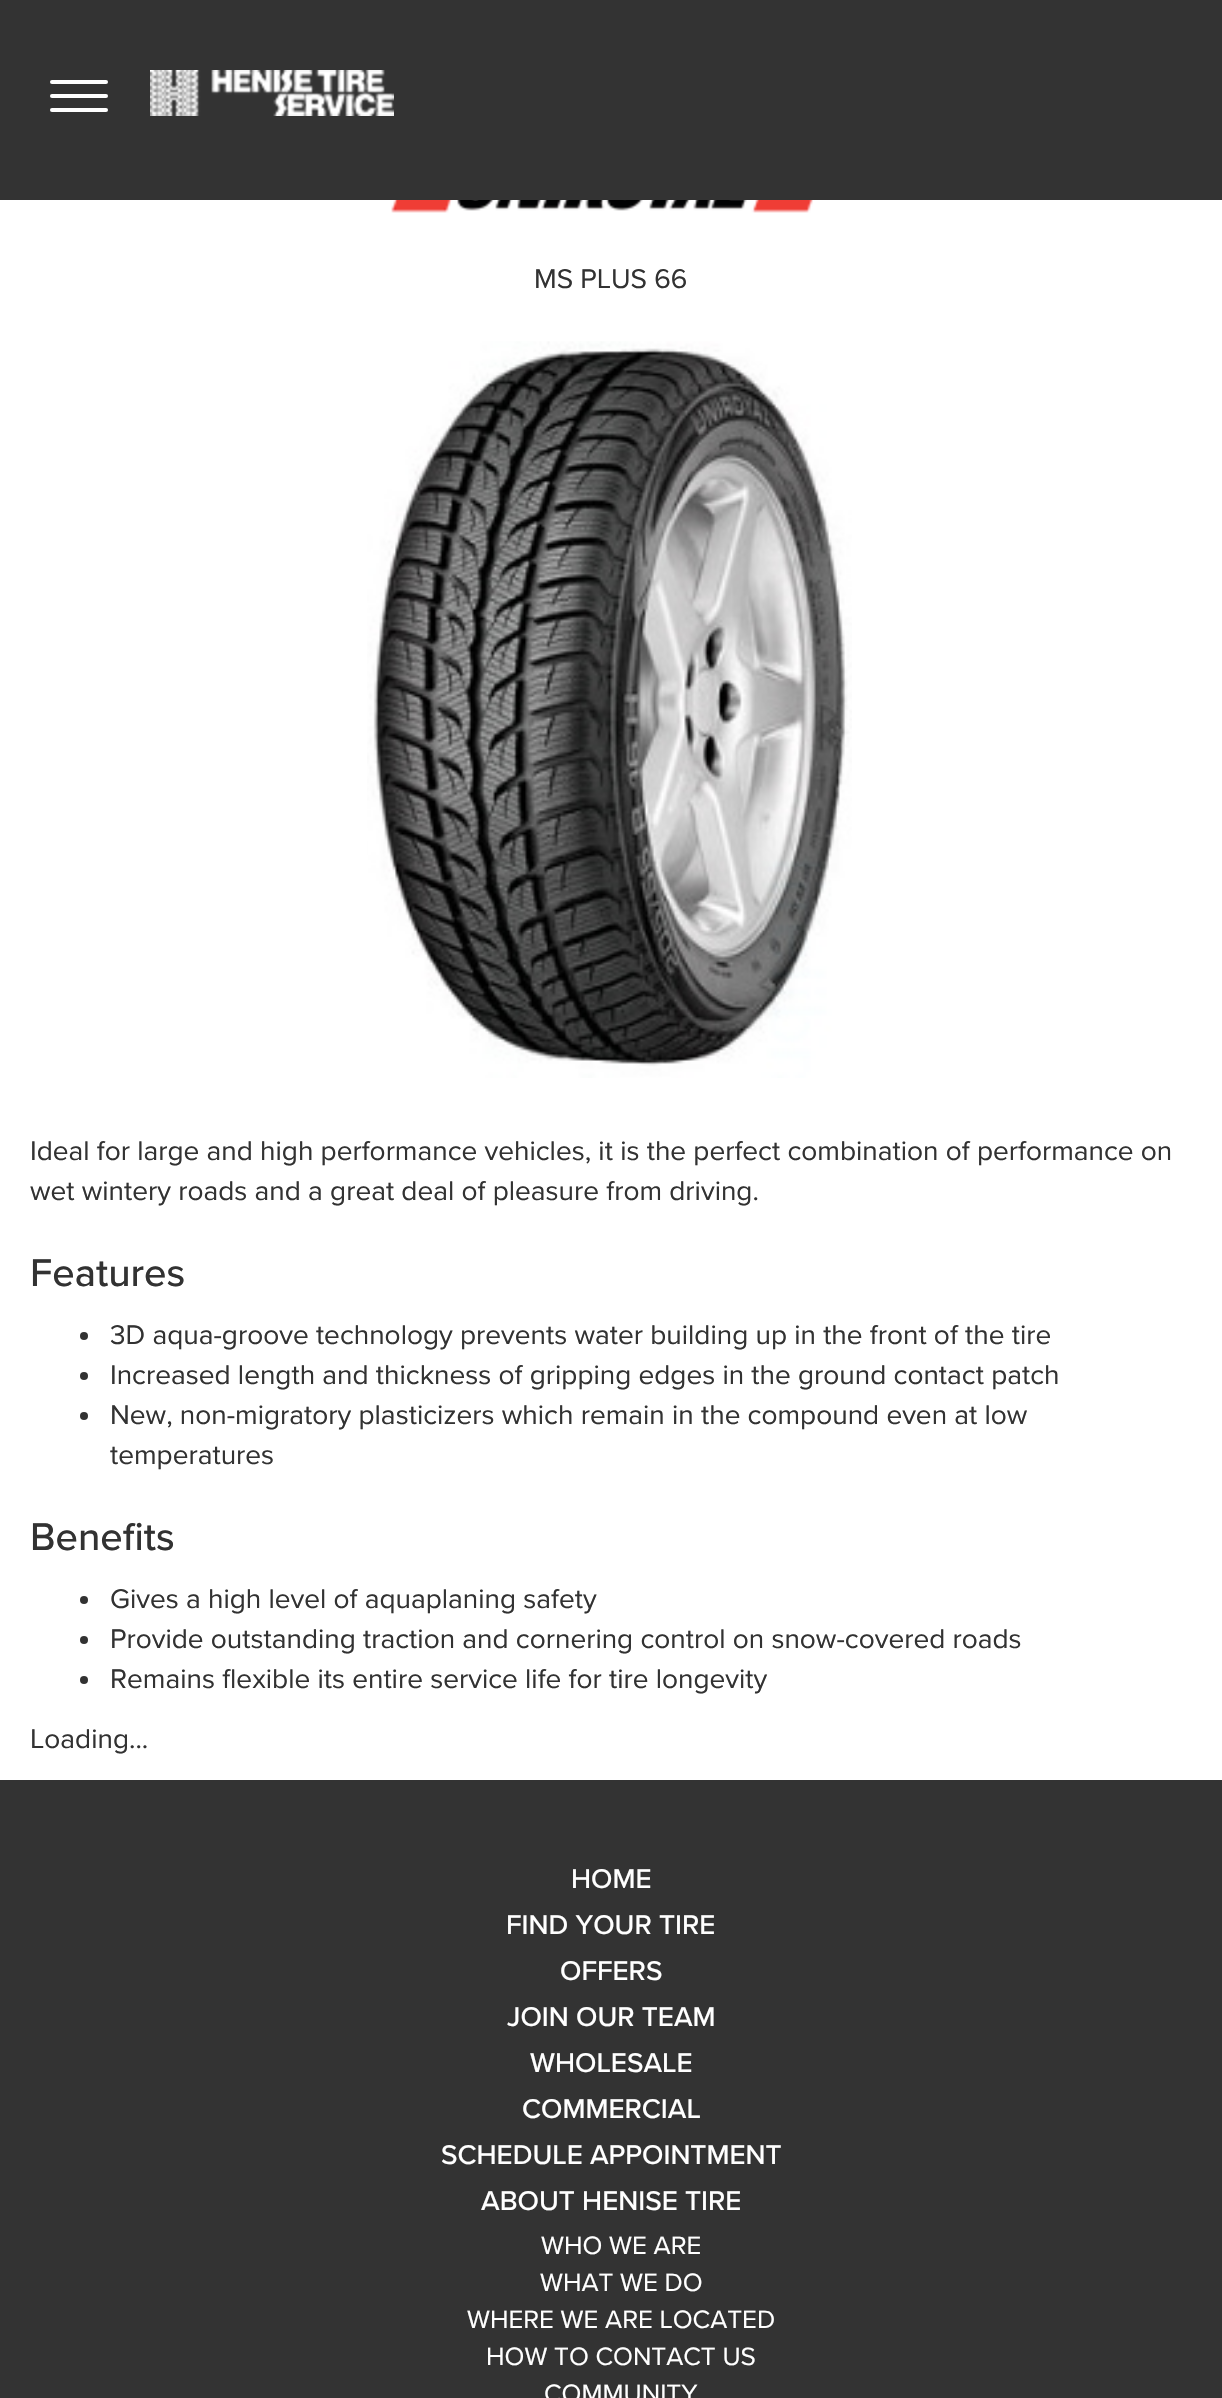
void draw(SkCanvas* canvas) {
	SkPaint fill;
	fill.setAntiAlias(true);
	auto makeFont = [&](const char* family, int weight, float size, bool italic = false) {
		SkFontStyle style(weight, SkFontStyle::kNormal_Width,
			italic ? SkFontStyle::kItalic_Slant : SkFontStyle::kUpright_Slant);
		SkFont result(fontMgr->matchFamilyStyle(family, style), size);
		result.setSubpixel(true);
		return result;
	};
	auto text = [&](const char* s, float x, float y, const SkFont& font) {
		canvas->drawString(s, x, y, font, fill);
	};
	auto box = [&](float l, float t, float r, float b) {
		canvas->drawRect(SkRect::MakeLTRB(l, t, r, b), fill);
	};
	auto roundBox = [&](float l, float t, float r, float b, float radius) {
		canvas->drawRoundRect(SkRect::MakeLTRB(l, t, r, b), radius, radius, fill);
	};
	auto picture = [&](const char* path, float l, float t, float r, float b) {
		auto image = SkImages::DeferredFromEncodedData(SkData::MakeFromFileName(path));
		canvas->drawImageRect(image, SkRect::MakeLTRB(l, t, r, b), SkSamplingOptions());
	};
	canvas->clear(0xFFFFFFFF);
	fill.setColor(0xFF333333);
	box(0, 0, 1222, 200);
	fill.setColor(0xFFFFFFFF);
	roundBox(50, 80, 108, 84, 2);
	roundBox(50, 94, 108, 98, 2);
	roundBox(50, 108, 108, 112, 2);
	picture("image0.png", 150, 70, 394, 116);
	picture("image1.png", 391, 200, 831, 213);
	picture("image2.png", 367, 341, 852, 1078);
	fill.setColor(0xFF323232);
	canvas->drawCircle(84, 1336, 4, fill);
	canvas->drawCircle(84, 1376, 4, fill);
	canvas->drawCircle(84, 1416, 4, fill);
	canvas->drawCircle(84, 1600, 4, fill);
	canvas->drawCircle(84, 1640, 4, fill);
	canvas->drawCircle(84, 1680, 4, fill);
	fill.setColor(0xFF333333);
	box(0, 1780, 1222, 2398);
	auto font1 = makeFont("Proxima Nova", 400, 28);
	fill.setColor(0xFF323232);
	text("MS PLUS 66", 534, 288, font1);
	text("Ideal for large and high performance vehicles, it is the perfect combination of performance on", 30, 1160, font1);
	text("wet wintery roads and a great deal of pleasure from driving.", 30, 1200, font1);
	auto font2 = makeFont("Proxima Nova", 500, 40);
	text("Features", 30, 1286, font2);
	text("3D aqua-groove technology prevents water building up in the front of the tire", 110, 1344, font1);
	text("Increased length and thickness of gripping edges in the ground contact patch", 110, 1384, font1);
	text("New, non-migratory plasticizers which remain in the compound even at low", 110, 1424, font1);
	text("temperatures", 110, 1464, font1);
	text("Benefits", 30, 1550, font2);
	text("Gives a high level of aquaplaning safety", 110, 1608, font1);
	text("Provide outstanding traction and cornering control on snow-covered roads", 110, 1648, font1);
	text("Remains flexible its entire service life for tire longevity", 110, 1688, font1);
	text("Loading...", 30, 1748, font1);
	auto font3 = makeFont("Proxima Nova", 500, 28);
	fill.setColor(0xFFFFFFFF);
	text("HOME", 571, 1888, font3);
	text("FIND YOUR TIRE", 506, 1934, font3);
	text("OFFERS", 560, 1980, font3);
	text("JOIN OUR TEAM", 507, 2026, font3);
	text("WHOLESALE", 530, 2072, font3);
	text("COMMERCIAL", 522, 2118, font3);
	text("SCHEDULE APPOINTMENT", 441, 2164, font3);
	text("ABOUT HENISE TIRE", 481, 2210, font3);
	auto font4 = makeFont("Proxima Nova", 400, 26);
	text("WHO WE ARE", 541, 2254, font4);
	text("WHAT WE DO", 540, 2291, font4);
	text("WHERE WE ARE LOCATED", 467, 2328, font4);
	text("HOW TO CONTACT US", 486, 2365, font4);
	text("COMMUNITY", 544, 2402, font4);
}
